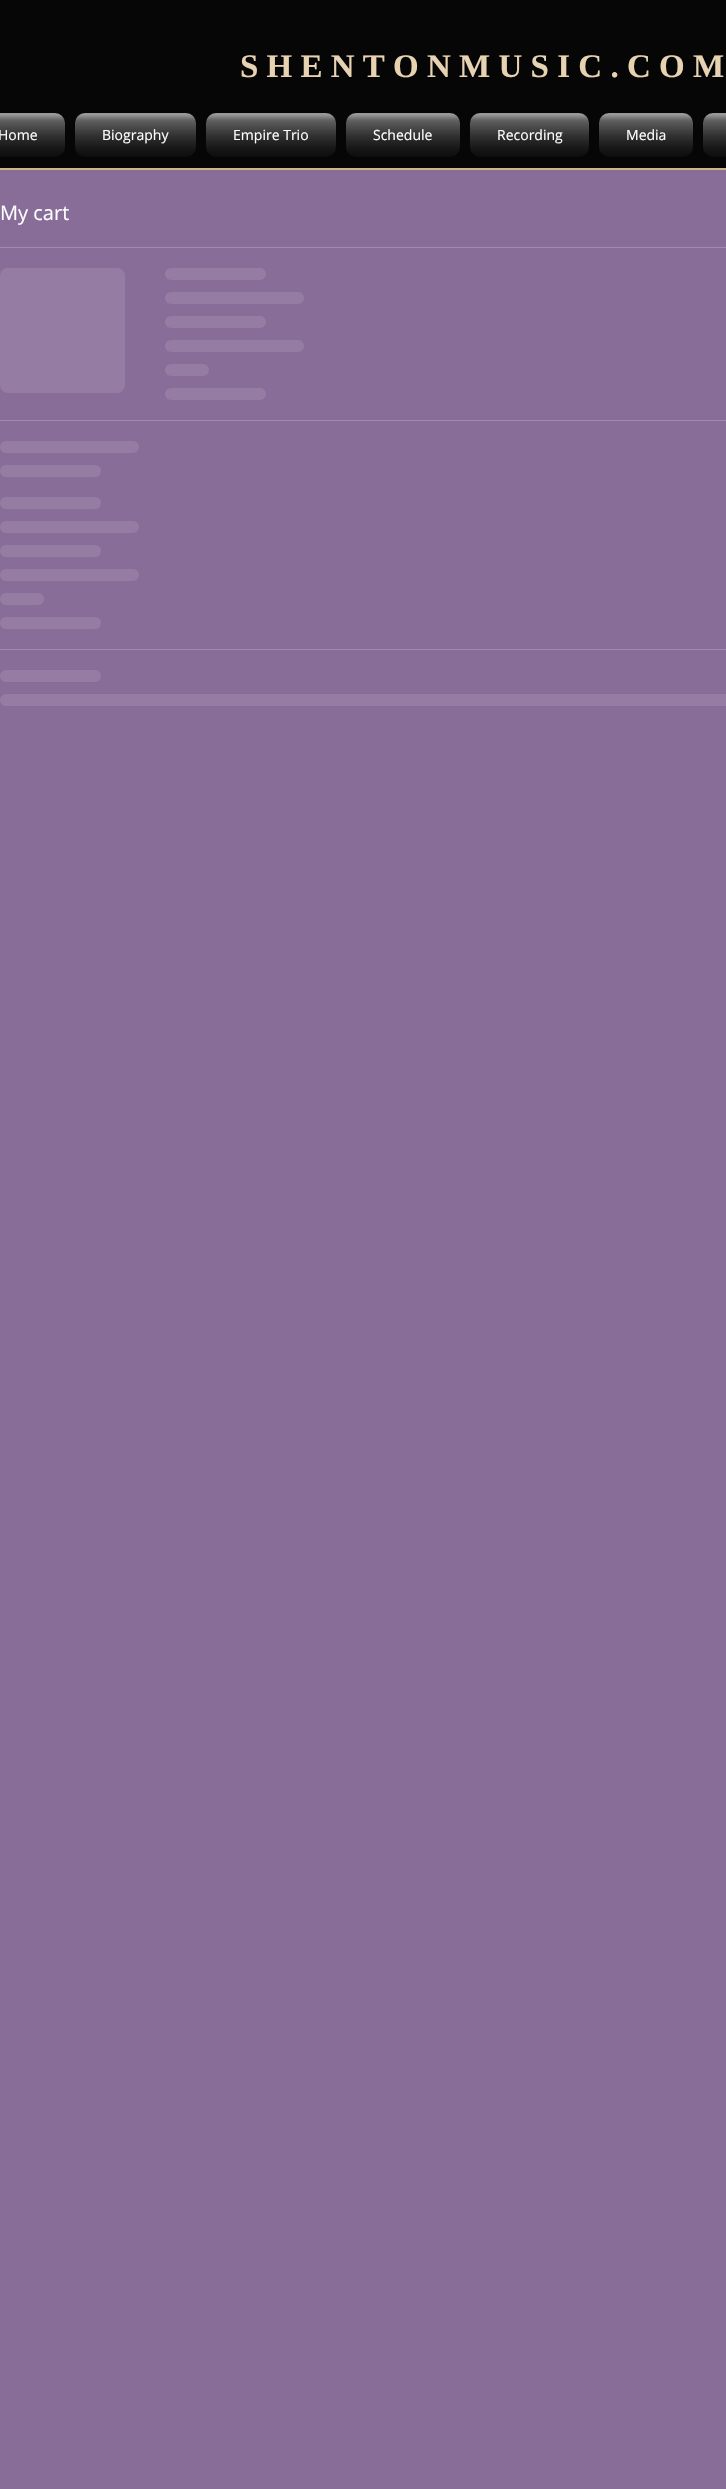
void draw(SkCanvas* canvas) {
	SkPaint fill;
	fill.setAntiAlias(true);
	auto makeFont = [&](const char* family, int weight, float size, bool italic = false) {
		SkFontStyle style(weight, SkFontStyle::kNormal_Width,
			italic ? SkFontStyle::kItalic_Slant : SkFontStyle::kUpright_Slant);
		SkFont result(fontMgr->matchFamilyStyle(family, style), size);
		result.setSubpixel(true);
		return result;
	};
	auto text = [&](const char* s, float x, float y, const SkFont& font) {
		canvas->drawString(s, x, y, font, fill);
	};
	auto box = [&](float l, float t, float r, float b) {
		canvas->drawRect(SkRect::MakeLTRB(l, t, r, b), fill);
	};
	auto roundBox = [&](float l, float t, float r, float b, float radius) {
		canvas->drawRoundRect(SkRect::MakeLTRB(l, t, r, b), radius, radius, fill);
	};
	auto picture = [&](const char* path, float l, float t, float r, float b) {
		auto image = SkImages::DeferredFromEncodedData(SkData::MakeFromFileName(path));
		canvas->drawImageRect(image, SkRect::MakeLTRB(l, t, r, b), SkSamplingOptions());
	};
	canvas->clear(0xFF886D99);
	fill.setColor(0xFF070606);
	box(0, 0, 726, 168);
	fill.setColor(0xFFCFB486);
	box(0, 168, 726, 170);
	picture("image0.png", 0, 113, 65, 157);
	picture("image1.png", 75, 113, 196, 157);
	picture("image2.png", 206, 113, 336, 157);
	picture("image3.png", 346, 113, 460, 157);
	picture("image4.png", 470, 113, 589, 157);
	picture("image5.png", 599, 113, 693, 157);
	picture("image6.png", 703, 113, 726, 157);
	fill.setColor(0xFFA08AAD);
	box(0, 247, 726, 248);
	{
		const SkColor colors[] = {0xFF947CA3, 0xFFA08AAD, 0xFF947CA3};
		const float stops[] = {0.25f, 0.37f, 0.63f};
		const SkPoint ends[] = {{0, 331}, {500, 331}};
		fill.setShader(SkGradientShader::MakeLinear(ends, colors, stops, 3, SkTileMode::kClamp));
		fill.setAlpha(255);
	}
	roundBox(0, 268, 125, 393, 8);
	{
		const SkColor colors[] = {0xFF947CA3, 0xFFA08AAD, 0xFF947CA3};
		const float stops[] = {0.25f, 0.37f, 0.63f};
		const SkPoint ends[] = {{165, 274}, {569, 274}};
		fill.setShader(SkGradientShader::MakeLinear(ends, colors, stops, 3, SkTileMode::kClamp));
		fill.setAlpha(255);
	}
	roundBox(165, 268, 266, 280, 6);
	{
		const SkColor colors[] = {0xFF947CA3, 0xFFA08AAD, 0xFF947CA3};
		const float stops[] = {0.25f, 0.37f, 0.63f};
		const SkPoint ends[] = {{165, 298}, {721, 298}};
		fill.setShader(SkGradientShader::MakeLinear(ends, colors, stops, 3, SkTileMode::kClamp));
		fill.setAlpha(255);
	}
	roundBox(165, 292, 304, 304, 6);
	{
		const SkColor colors[] = {0xFF947CA3, 0xFFA08AAD, 0xFF947CA3};
		const float stops[] = {0.25f, 0.37f, 0.63f};
		const SkPoint ends[] = {{165, 322}, {569, 322}};
		fill.setShader(SkGradientShader::MakeLinear(ends, colors, stops, 3, SkTileMode::kClamp));
		fill.setAlpha(255);
	}
	roundBox(165, 316, 266, 328, 6);
	{
		const SkColor colors[] = {0xFF947CA3, 0xFFA08AAD, 0xFF947CA3};
		const float stops[] = {0.25f, 0.37f, 0.63f};
		const SkPoint ends[] = {{165, 346}, {721, 346}};
		fill.setShader(SkGradientShader::MakeLinear(ends, colors, stops, 3, SkTileMode::kClamp));
		fill.setAlpha(255);
	}
	roundBox(165, 340, 304, 352, 6);
	{
		const SkColor colors[] = {0xFF947CA3, 0xFFA08AAD, 0xFF947CA3};
		const float stops[] = {0.25f, 0.37f, 0.63f};
		const SkPoint ends[] = {{165, 370}, {341, 370}};
		fill.setShader(SkGradientShader::MakeLinear(ends, colors, stops, 3, SkTileMode::kClamp));
		fill.setAlpha(255);
	}
	roundBox(165, 364, 209, 376, 6);
	{
		const SkColor colors[] = {0xFF947CA3, 0xFFA08AAD, 0xFF947CA3};
		const float stops[] = {0.25f, 0.37f, 0.63f};
		const SkPoint ends[] = {{165, 394}, {569, 394}};
		fill.setShader(SkGradientShader::MakeLinear(ends, colors, stops, 3, SkTileMode::kClamp));
		fill.setAlpha(255);
	}
	roundBox(165, 388, 266, 400, 6);
	fill.setShader(nullptr);
	fill.setColor(0xFFA08AAD);
	box(0, 420, 726, 421);
	{
		const SkColor colors[] = {0xFF947CA3, 0xFFA08AAD, 0xFF947CA3};
		const float stops[] = {0.25f, 0.37f, 0.63f};
		const SkPoint ends[] = {{0, 447}, {556, 447}};
		fill.setShader(SkGradientShader::MakeLinear(ends, colors, stops, 3, SkTileMode::kClamp));
		fill.setAlpha(255);
	}
	roundBox(0, 441, 139, 453, 6);
	{
		const SkColor colors[] = {0xFF947CA3, 0xFFA08AAD, 0xFF947CA3};
		const float stops[] = {0.25f, 0.37f, 0.63f};
		const SkPoint ends[] = {{0, 471}, {404, 471}};
		fill.setShader(SkGradientShader::MakeLinear(ends, colors, stops, 3, SkTileMode::kClamp));
		fill.setAlpha(255);
	}
	roundBox(0, 465, 101, 477, 6);
	{
		const SkColor colors[] = {0xFF947CA3, 0xFFA08AAD, 0xFF947CA3};
		const float stops[] = {0.25f, 0.37f, 0.63f};
		const SkPoint ends[] = {{0, 503}, {404, 503}};
		fill.setShader(SkGradientShader::MakeLinear(ends, colors, stops, 3, SkTileMode::kClamp));
		fill.setAlpha(255);
	}
	roundBox(0, 497, 101, 509, 6);
	{
		const SkColor colors[] = {0xFF947CA3, 0xFFA08AAD, 0xFF947CA3};
		const float stops[] = {0.25f, 0.37f, 0.63f};
		const SkPoint ends[] = {{0, 527}, {556, 527}};
		fill.setShader(SkGradientShader::MakeLinear(ends, colors, stops, 3, SkTileMode::kClamp));
		fill.setAlpha(255);
	}
	roundBox(0, 521, 139, 533, 6);
	{
		const SkColor colors[] = {0xFF947CA3, 0xFFA08AAD, 0xFF947CA3};
		const float stops[] = {0.25f, 0.37f, 0.63f};
		const SkPoint ends[] = {{0, 551}, {404, 551}};
		fill.setShader(SkGradientShader::MakeLinear(ends, colors, stops, 3, SkTileMode::kClamp));
		fill.setAlpha(255);
	}
	roundBox(0, 545, 101, 557, 6);
	{
		const SkColor colors[] = {0xFF947CA3, 0xFFA08AAD, 0xFF947CA3};
		const float stops[] = {0.25f, 0.37f, 0.63f};
		const SkPoint ends[] = {{0, 575}, {556, 575}};
		fill.setShader(SkGradientShader::MakeLinear(ends, colors, stops, 3, SkTileMode::kClamp));
		fill.setAlpha(255);
	}
	roundBox(0, 569, 139, 581, 6);
	{
		const SkColor colors[] = {0xFF947CA3, 0xFFA08AAD, 0xFF947CA3};
		const float stops[] = {0.25f, 0.37f, 0.63f};
		const SkPoint ends[] = {{0, 599}, {176, 599}};
		fill.setShader(SkGradientShader::MakeLinear(ends, colors, stops, 3, SkTileMode::kClamp));
		fill.setAlpha(255);
	}
	roundBox(0, 593, 44, 605, 6);
	{
		const SkColor colors[] = {0xFF947CA3, 0xFFA08AAD, 0xFF947CA3};
		const float stops[] = {0.25f, 0.37f, 0.63f};
		const SkPoint ends[] = {{0, 623}, {404, 623}};
		fill.setShader(SkGradientShader::MakeLinear(ends, colors, stops, 3, SkTileMode::kClamp));
		fill.setAlpha(255);
	}
	roundBox(0, 617, 101, 629, 6);
	fill.setShader(nullptr);
	fill.setColor(0xFFA08AAD);
	box(0, 649, 726, 650);
	{
		const SkColor colors[] = {0xFF947CA3, 0xFFA08AAD, 0xFF947CA3};
		const float stops[] = {0.25f, 0.37f, 0.63f};
		const SkPoint ends[] = {{0, 676}, {404, 676}};
		fill.setShader(SkGradientShader::MakeLinear(ends, colors, stops, 3, SkTileMode::kClamp));
		fill.setAlpha(255);
	}
	roundBox(0, 670, 101, 682, 6);
	{
		const SkColor colors[] = {0xFF947CA3, 0xFFA08AAD, 0xFF947CA3};
		const float stops[] = {0.25f, 0.37f, 0.63f};
		const SkPoint ends[] = {{0, 700}, {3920, 700}};
		fill.setShader(SkGradientShader::MakeLinear(ends, colors, stops, 3, SkTileMode::kClamp));
		fill.setAlpha(255);
	}
	roundBox(0, 694, 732, 706, 6);
	auto font1 = makeFont("Liberation Serif", 700, 33);
	fill.setShader(nullptr);
	fill.setColor(0xFFE7D3B1);
	text("S H E N T O N M U S I C . C O M", 240, 77, font1);
	auto font2 = makeFont("Open Sans", 400, 14);
	fill.setColor(0xFFFFFFFF);
	text("Home", -2, 140, font2);
	text("Biography", 102, 140, font2);
	text("Empire Trio", 233, 140, font2);
	text("Schedule", 373, 140, font2);
	text("Recording", 497, 140, font2);
	text("Media", 626, 140, font2);
	auto font3 = makeFont("Open Sans", 400, 20);
	text("My cart", 0, 220, font3);
}
